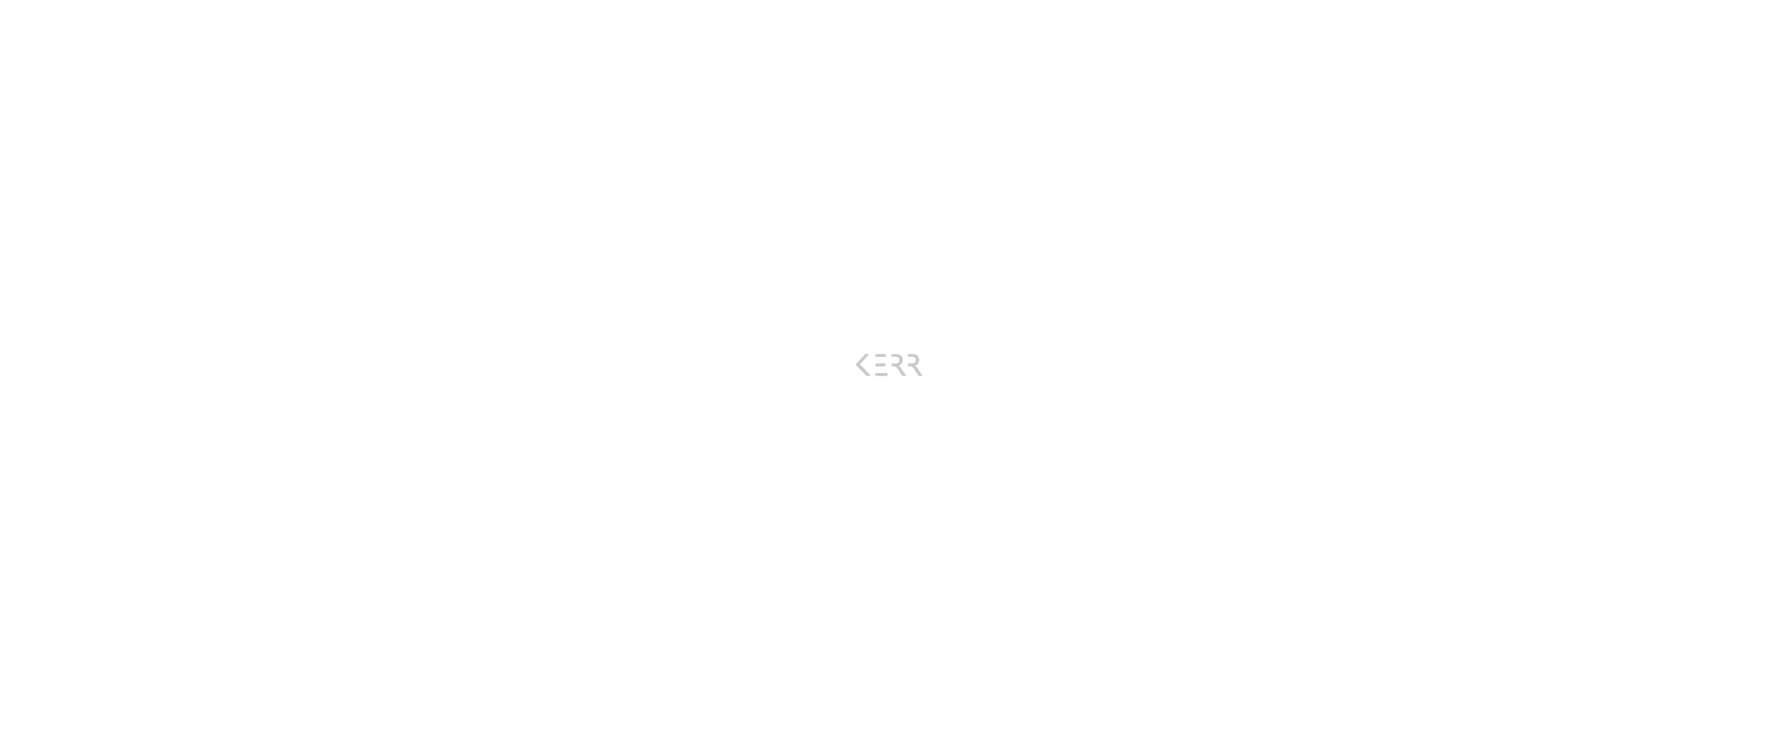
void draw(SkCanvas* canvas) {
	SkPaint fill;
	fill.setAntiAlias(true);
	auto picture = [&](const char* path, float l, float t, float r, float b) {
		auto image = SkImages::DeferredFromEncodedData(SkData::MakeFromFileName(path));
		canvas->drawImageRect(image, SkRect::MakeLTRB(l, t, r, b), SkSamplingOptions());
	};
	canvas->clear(0xFFFFFFFF);
	picture("image0.png", 856, 353, 923, 377);
}
